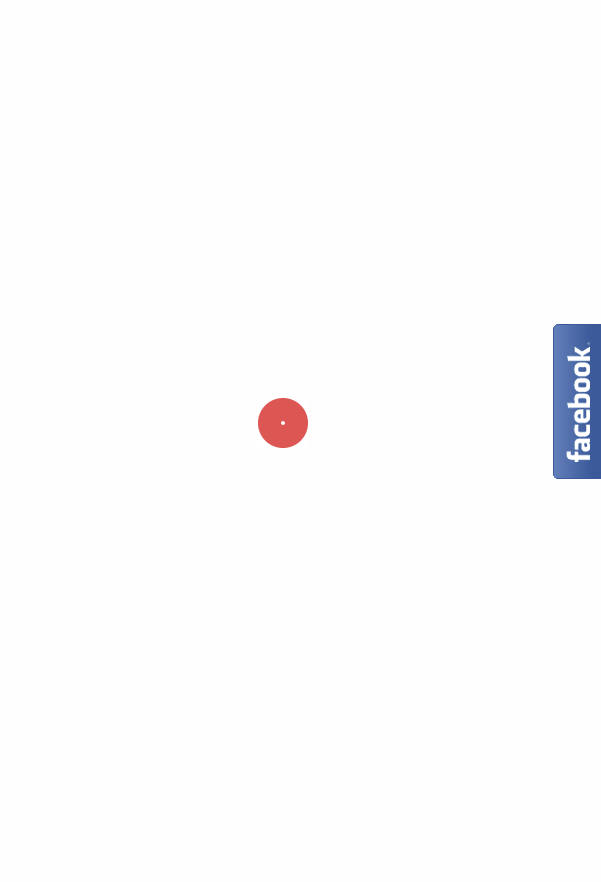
void draw(SkCanvas* canvas) {
	SkPaint fill;
	fill.setAntiAlias(true);
	auto picture = [&](const char* path, float l, float t, float r, float b) {
		auto image = SkImages::DeferredFromEncodedData(SkData::MakeFromFileName(path));
		canvas->drawImageRect(image, SkRect::MakeLTRB(l, t, r, b), SkSamplingOptions());
	};
	canvas->clear(0xFFFEFEFE);
	picture("image0.png", 258, 398, 308, 448);
	picture("image1.png", 553, 324, 601, 479);
}
